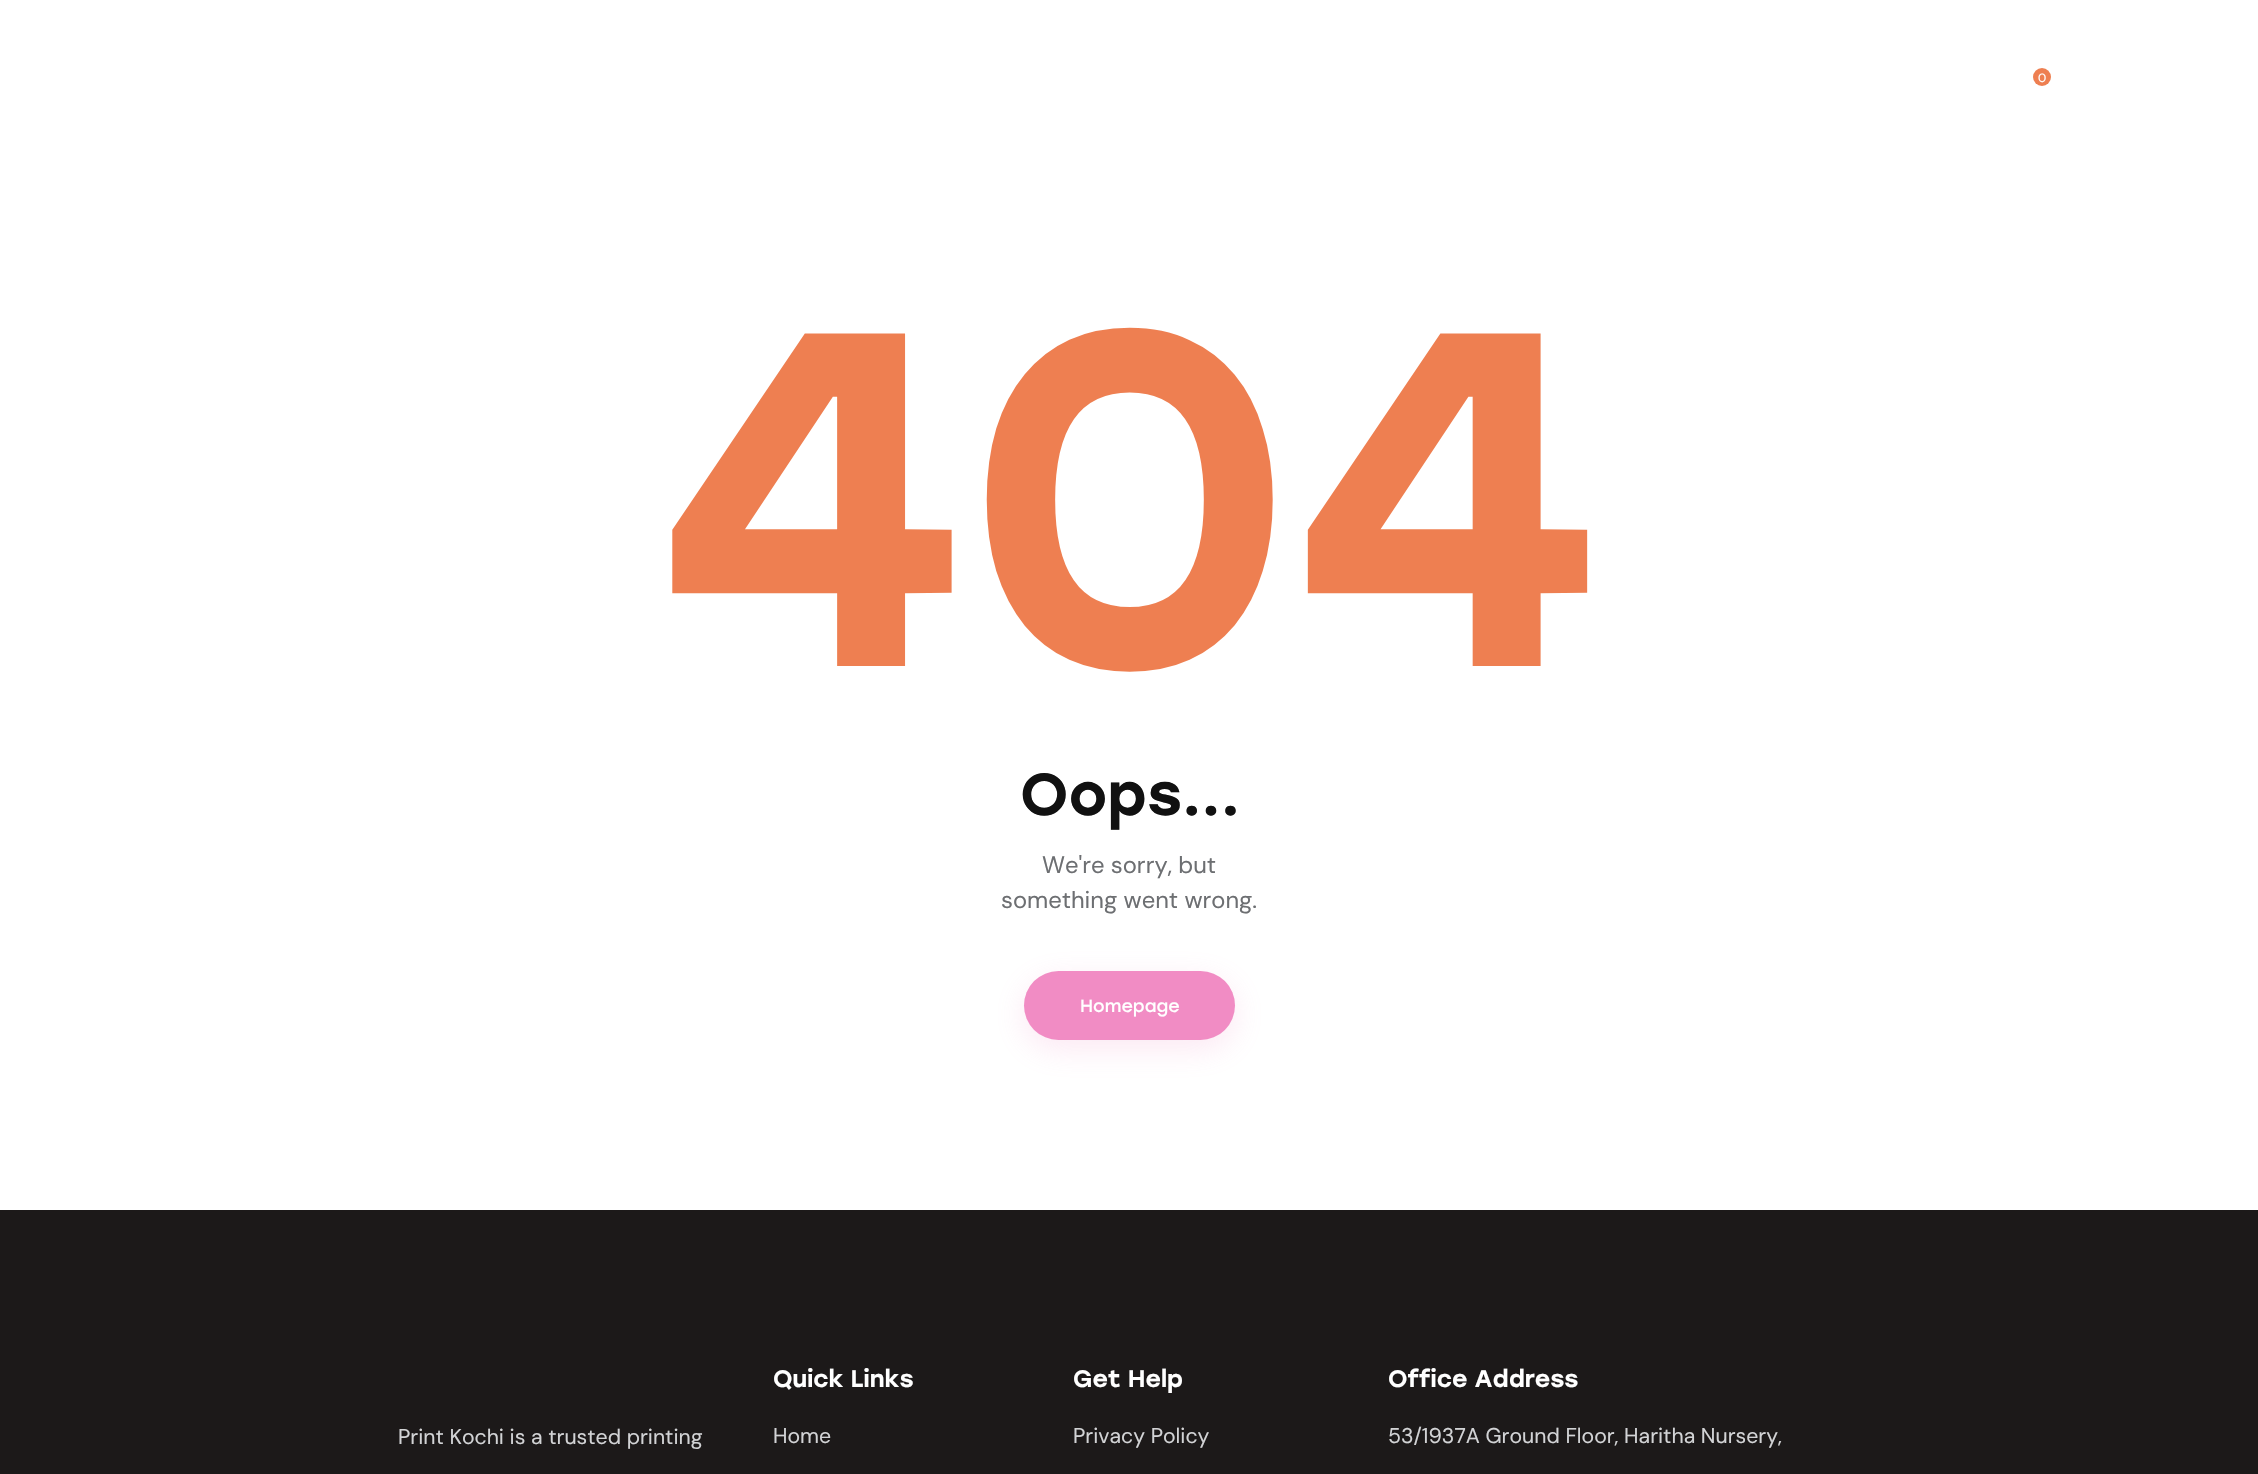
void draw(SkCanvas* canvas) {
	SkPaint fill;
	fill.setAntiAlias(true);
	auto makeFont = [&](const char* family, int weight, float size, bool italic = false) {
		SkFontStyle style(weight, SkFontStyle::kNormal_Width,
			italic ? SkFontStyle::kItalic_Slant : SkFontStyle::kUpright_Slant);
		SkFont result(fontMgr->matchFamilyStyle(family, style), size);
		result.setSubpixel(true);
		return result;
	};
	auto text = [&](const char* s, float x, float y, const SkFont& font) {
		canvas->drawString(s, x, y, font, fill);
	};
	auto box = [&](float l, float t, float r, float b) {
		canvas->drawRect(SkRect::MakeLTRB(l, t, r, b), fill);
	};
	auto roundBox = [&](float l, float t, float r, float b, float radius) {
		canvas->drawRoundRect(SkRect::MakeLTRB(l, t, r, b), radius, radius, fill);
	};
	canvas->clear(0xFFFFFFFF);
	fill.setColor(0xFFEE7F51);
	canvas->drawCircle(2042, 77, 9, fill);
	fill.setColor(0x33F18CC4);
	fill.setMaskFilter(SkMaskFilter::MakeBlur(kNormal_SkBlurStyle, 15.5f));
	canvas->drawRoundRect(SkRect::MakeLTRB(1024, 980, 1235, 1049), 34.5f, 34.5f, fill);
	fill.setMaskFilter(nullptr);
	fill.setColor(0xFFF18CC4);
	roundBox(1024, 971, 1235, 1040, 34.5f);
	fill.setColor(0xFF1C1919);
	box(0, 1210, 2258, 1474);
	auto font1 = makeFont("DM Sans", 400, 12);
	fill.setColor(0xFFFFFFFF);
	text("0", 2038, 82, font1);
	auto font2 = makeFont("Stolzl", 500, 475);
	fill.setColor(0xFFEE7F51);
	text("404", 659, 666, font2);
	auto font3 = makeFont("Stolzl", 500, 59);
	fill.setColor(0xFF111111);
	text("Oops...", 1020, 815, font3);
	auto font4 = makeFont("DM Sans", 400, 23.75f);
	fill.setColor(0xFF6D6F72);
	text("We're sorry, but", 1042, 873, font4);
	text("something went wrong.", 1001, 908, font4);
	auto font5 = makeFont("Stolzl", 400, 17.5f);
	fill.setColor(0xFFFFFFFF);
	text("Homepage", 1080, 1012, font5);
	auto font6 = makeFont("DM Sans", 400, 21.25f);
	fill.setColor(0xFFD2D3D5);
	text("Print Kochi is a trusted printing", 398, 1444, font6);
	auto font7 = makeFont("Stolzl", 500, 23.75f);
	fill.setColor(0xFFFFFFFF);
	text("Quick Links", 773, 1387, font7);
	fill.setColor(0xFFD2D3D5);
	text("Home", 773, 1443, font6);
	fill.setColor(0xFFFFFFFF);
	text("Get Help", 1073, 1387, font7);
	fill.setColor(0xFFD2D3D5);
	text("Privacy Policy", 1073, 1443, font6);
	fill.setColor(0xFFFFFFFF);
	text("Office Address", 1388, 1387, font7);
	fill.setColor(0xFFD2D3D5);
	text("53/1937A Ground Floor, Haritha Nursery,", 1388, 1443, font6);
}
